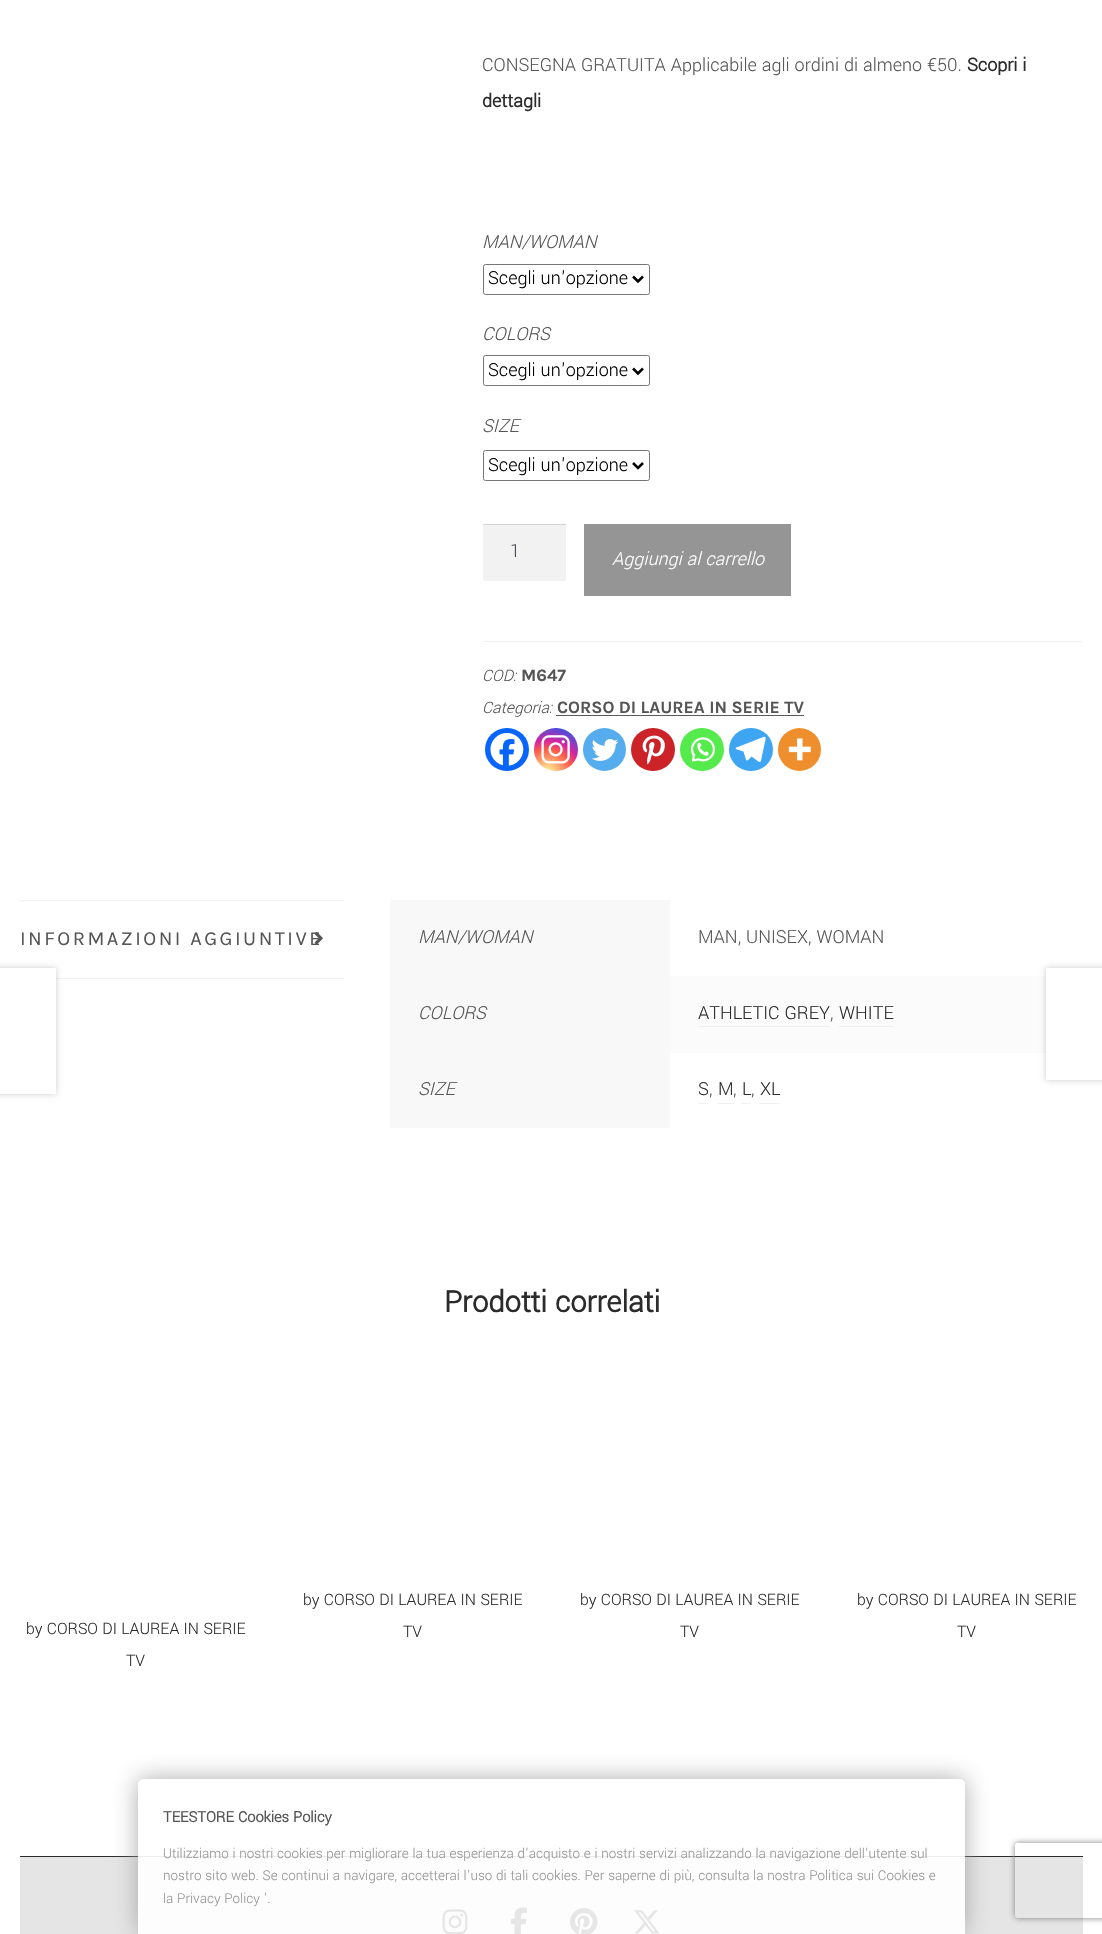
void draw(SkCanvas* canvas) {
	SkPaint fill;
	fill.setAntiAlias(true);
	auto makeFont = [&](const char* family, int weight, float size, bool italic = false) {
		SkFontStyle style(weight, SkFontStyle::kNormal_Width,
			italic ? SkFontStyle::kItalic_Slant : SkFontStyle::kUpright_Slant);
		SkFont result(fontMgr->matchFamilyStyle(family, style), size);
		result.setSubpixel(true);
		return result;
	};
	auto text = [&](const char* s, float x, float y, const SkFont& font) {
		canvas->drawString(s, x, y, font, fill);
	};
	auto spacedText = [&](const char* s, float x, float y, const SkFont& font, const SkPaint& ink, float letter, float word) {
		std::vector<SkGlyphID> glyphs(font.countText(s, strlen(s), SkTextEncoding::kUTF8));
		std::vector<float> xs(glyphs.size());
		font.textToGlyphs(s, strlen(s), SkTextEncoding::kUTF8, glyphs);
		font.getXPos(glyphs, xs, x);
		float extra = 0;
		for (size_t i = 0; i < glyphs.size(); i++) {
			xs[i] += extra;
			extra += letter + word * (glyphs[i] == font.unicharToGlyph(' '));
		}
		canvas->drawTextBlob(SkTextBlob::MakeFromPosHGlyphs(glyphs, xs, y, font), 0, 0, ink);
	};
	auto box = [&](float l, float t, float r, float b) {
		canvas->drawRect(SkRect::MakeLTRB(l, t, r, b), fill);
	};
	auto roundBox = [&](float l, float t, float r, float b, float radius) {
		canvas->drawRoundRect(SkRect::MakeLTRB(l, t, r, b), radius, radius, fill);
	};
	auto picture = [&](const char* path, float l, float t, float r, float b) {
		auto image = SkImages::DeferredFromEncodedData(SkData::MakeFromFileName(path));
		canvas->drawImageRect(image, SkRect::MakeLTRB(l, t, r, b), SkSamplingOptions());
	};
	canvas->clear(0xFFFFFFFF);
	fill.setStyle(SkPaint::kStroke_Style);
	fill.setStrokeWidth(1);
	fill.setColor(0xFF767676);
	canvas->drawRoundRect(SkRect::MakeLTRB(483.5f, 264.5f, 649.5f, 294.5f), 2, 2, fill);
	fill.setStrokeWidth(2.5f);
	fill.setColor(0xFF000000);
	canvas->drawPath(SkPathBuilder().moveTo(633, 276.5f).lineTo(638, 281.5f).lineTo(643, 276.5f).detach(), fill);
	fill.setStrokeWidth(1);
	fill.setColor(0xFF767676);
	canvas->drawRoundRect(SkRect::MakeLTRB(483.5f, 355.5f, 649.5f, 385.5f), 2, 2, fill);
	fill.setStrokeWidth(2.5f);
	fill.setColor(0xFF000000);
	canvas->drawPath(SkPathBuilder().moveTo(633, 368.5f).lineTo(638, 373.5f).lineTo(643, 368.5f).detach(), fill);
	fill.setStrokeWidth(1);
	fill.setColor(0xFF767676);
	canvas->drawRoundRect(SkRect::MakeLTRB(483.5f, 450.5f, 649.5f, 480.5f), 2, 2, fill);
	fill.setStrokeWidth(2.5f);
	fill.setColor(0xFF000000);
	canvas->drawPath(SkPathBuilder().moveTo(633, 463).lineTo(638, 468).lineTo(643, 463).detach(), fill);
	fill.setStyle(SkPaint::kFill_Style);
	fill.setColor(0xFFF2F2F2);
	box(483, 525, 566, 581);
	fill.setColor(0xFFD4D4D4);
	box(483, 524, 566, 525);
	fill.setColor(0xFF959595);
	box(584, 524, 791, 596);
	fill.setColor(0xFFF2F2F2);
	box(483, 641, 1083, 642);
	fill.setColor(0xFF5A5A5A);
	box(556, 715, 804, 716);
	fill.setColor(0xFF0765FE);
	roundBox(485, 728, 529, 771, 21.5f);
	picture("image0.png", 490, 733, 524, 766);
	{
		const SkColor colors[] = {0xFFFDF497, 0xFFFDF497, 0xFFFD5949, 0xFFD6249F, 0xFF285AEB};
		const float stops[] = {0, 0.05f, 0.45f, 0.6f, 0.9f};
		fill.setShader(SkGradientShader::MakeRadial({547, 774}, 56, colors, stops, 5, SkTileMode::kClamp));
		fill.setAlpha(255);
	}
	roundBox(534, 728, 578, 771, 21.5f);
	picture("image1.png", 541, 735, 570, 764);
	fill.setShader(nullptr);
	fill.setColor(0xFF55ACEE);
	canvas->drawCircle(604.5f, 749.5f, 21.5f, fill);
	picture("image2.png", 591, 739, 619, 761);
	fill.setColor(0xFFCC2329);
	roundBox(631, 728, 675, 771, 21.5f);
	picture("image3.png", 642, 735, 665, 765);
	fill.setColor(0xFF55EB4C);
	roundBox(680, 728, 724, 771, 21.5f);
	picture("image4.png", 690, 737, 715, 762);
	fill.setColor(0xFF3DA5F1);
	roundBox(729, 728, 773, 771, 21.5f);
	picture("image5.png", 735, 736, 766, 762);
	fill.setColor(0xFFEE8E2D);
	canvas->drawCircle(799.5f, 749.5f, 21.5f, fill);
	picture("image6.png", 788, 738, 811, 761);
	fill.setColor(0xFFF2F2F2);
	box(20, 900, 344, 901);
	box(56, 978, 344, 979);
	fill.setColor(0xFFF8F8F8);
	box(390, 900, 670, 1128);
	fill.setColor(0xFFFBFBFB);
	box(670, 976, 1046, 1053);
	fill.setColor(0xFFEEEEEE);
	box(699, 1026, 830, 1027);
	box(839, 1026, 894, 1027);
	fill.setColor(0xFFF0F0F0);
	box(699, 1103, 709, 1104);
	box(718, 1103, 734, 1104);
	box(741, 1103, 751, 1104);
	box(760, 1103, 780, 1104);
	fill.setColor(0x33000000);
	fill.setMaskFilter(SkMaskFilter::MakeBlur(kNormal_SkBlurStyle, 3));
	canvas->drawRect(SkRect::MakeLTRB(-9, 968, 56, 1094), fill);
	fill.setMaskFilter(nullptr);
	fill.setColor(0xFFFFFFFF);
	box(0, 968, 56, 1094);
	fill.setColor(0x33000000);
	fill.setMaskFilter(SkMaskFilter::MakeBlur(kNormal_SkBlurStyle, 3));
	canvas->drawRect(SkRect::MakeLTRB(1046, 968, 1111, 1080), fill);
	fill.setMaskFilter(nullptr);
	fill.setColor(0xFFFFFFFF);
	box(1046, 968, 1102, 1080);
	fill.setColor(0xFFE5E5E5);
	box(20, 1857, 1083, 1934);
	fill.setColor(0xFF2B2B2B);
	box(20, 1856, 1083, 1857);
	picture("image8.png", 442, 1909, 468, 1934);
	picture("image9.png", 510, 1907, 527, 1934);
	picture("image10.png", 570, 1908, 598, 1934);
	picture("image11.png", 634, 1910, 660, 1934);
	canvas->save();
	canvas->clipPath(SkPathBuilder(SkPathFillType::kEvenOdd).moveTo(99, 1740).lineTo(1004, 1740).lineTo(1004, 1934).lineTo(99, 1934).close().moveTo(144, 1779).lineTo(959, 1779).cubicTo(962.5f, 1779, 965, 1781.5f, 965, 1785).lineTo(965, 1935).lineTo(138, 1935).lineTo(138, 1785).cubicTo(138, 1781.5f, 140.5f, 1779, 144, 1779).close().detach(), true);
	fill.setColor(0xE6A1A1A1);
	fill.setMaskFilter(SkMaskFilter::MakeBlur(kNormal_SkBlurStyle, 12.5f));
	canvas->drawRoundRect(SkRect::MakeLTRB(138, 1779, 965, 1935), 6, 6, fill);
	fill.setMaskFilter(nullptr);
	canvas->restore();
	fill.setColor(0xE6FFFFFF);
	canvas->drawPath(SkPathBuilder().moveTo(144, 1779).lineTo(959, 1779).cubicTo(962.5f, 1779, 965, 1781.5f, 965, 1785).lineTo(965, 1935).lineTo(138, 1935).lineTo(138, 1785).cubicTo(138, 1781.5f, 140.5f, 1779, 144, 1779).close().detach(), fill);
	canvas->save();
	canvas->clipPath(SkPathBuilder(SkPathFillType::kEvenOdd).moveTo(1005, 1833).lineTo(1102, 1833).lineTo(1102, 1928).lineTo(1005, 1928).close().moveTo(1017.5f, 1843).lineTo(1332.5f, 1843).cubicTo(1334, 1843, 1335, 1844, 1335, 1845.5f).lineTo(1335, 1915.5f).cubicTo(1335, 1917, 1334, 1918, 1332.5f, 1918).lineTo(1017.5f, 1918).cubicTo(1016, 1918, 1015, 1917, 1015, 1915.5f).lineTo(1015, 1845.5f).cubicTo(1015, 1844, 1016, 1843, 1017.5f, 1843).close().detach(), true);
	fill.setColor(0xFF808080);
	fill.setMaskFilter(SkMaskFilter::MakeBlur(kNormal_SkBlurStyle, 3));
	canvas->drawRoundRect(SkRect::MakeLTRB(1015, 1843, 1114, 1918), 2.5f, 2.5f, fill);
	fill.setMaskFilter(nullptr);
	canvas->restore();
	auto font1 = makeFont("Yantramanav", 300, 20);
	fill.setColor(0xFF555555);
	text("CONSEGNA GRATUITA Applicabile agli ordini di almeno €50.", 482, 71, font1);
	auto font2 = makeFont("Yantramanav", 700, 20);
	fill.setColor(0xFF2B2B2B);
	text("Scopri i", 967, 71, font2);
	text("dettagli", 482, 107, font2);
	auto font3 = makeFont("Yantramanav", 300, 20, true);
	fill.setColor(0xFF555555);
	text("MAN/WOMAN", 482, 248, font3);
	fill.setColor(0xFF000000);
	text("Scegli un'opzione", 488, 284, font1);
	fill.setColor(0xFF555555);
	text("COLORS", 482, 340, font3);
	fill.setColor(0xFF000000);
	text("Scegli un'opzione", 488, 376, font1);
	fill.setColor(0xFF555555);
	text("SIZE", 482, 432, font3);
	fill.setColor(0xFF000000);
	text("Scegli un'opzione", 488, 471, font1);
	fill.setColor(0xFF43454B);
	text("1", 510, 557, font1);
	fill.setColor(0xFFFFFFFF);
	text("Aggiungi al carrello", 612, 565, font3);
	auto font4 = makeFont("Yantramanav", 300, 17.5f, true);
	fill.setColor(0xFF555555);
	text("COD:", 482, 681, font4);
	auto font5 = makeFont("Karla", 700, 17.5f);
	text("M647", 521, 681, font5);
	text("Categoria:", 482, 713, font4);
	text("CORSO DI LAUREA IN SERIE TV", 557, 713, font5);
	auto font6 = makeFont("Karla", 400, 20);
	spacedText("INFORMAZIONI AGGIUNTIVE", 20, 945, font6, fill, 2.5f, 0);
	picture("image7.png", 314, 932, 323, 944);
	text("MAN/WOMAN", 418, 943, font3);
	text("MAN, UNISEX, WOMAN", 698, 943, font1);
	text("COLORS", 418, 1019, font3);
	fill.setColor(0xFF2B2B2B);
	text("ATHLETIC GREY", 698, 1019, font1);
	text("WHITE", 839, 1019, font1);
	fill.setColor(0xFF555555);
	text(",", 830, 1019, font1);
	text("SIZE", 418, 1095, font3);
	fill.setColor(0xFF2B2B2B);
	text("S", 698, 1095, font1);
	text("M", 718, 1095, font1);
	text("L", 742, 1095, font1);
	text("XL", 760, 1095, font1);
	fill.setColor(0xFF555555);
	text(",", 709, 1095, font1);
	text(",", 733, 1095, font1);
	text(",", 751, 1095, font1);
	auto font7 = makeFont("Yantramanav", 700, 32.5f);
	fill.setColor(0xFF2B2B2B);
	text("Prodotti correlati", 444, 1312, font7);
	auto font8 = makeFont("Yantramanav", 300, 17.5f);
	text("by CORSO DI LAUREA IN SERIE", 303, 1605, font8);
	text("TV", 403, 1637, font8);
	text("by CORSO DI LAUREA IN SERIE", 580, 1605, font8);
	text("TV", 680, 1637, font8);
	text("by CORSO DI LAUREA IN SERIE", 857, 1605, font8);
	text("TV", 957, 1637, font8);
	text("by CORSO DI LAUREA IN SERIE", 26, 1634, font8);
	text("TV", 126, 1666, font8);
	auto font9 = makeFont("Yantramanav", 700, 16.25f);
	fill.setColor(0xFF555555);
	text("TEESTORE Cookies Policy", 163, 1822, font9);
	auto font10 = makeFont("Yantramanav", 300, 15);
	fill.setColor(0xFF949494);
	text("Utilizziamo i nostri cookies per migliorare la tua esperienza d'acquisto e i nostri servizi analizzando la navigazione dell'utente sul", 163, 1858, font10);
	text("nostro sito web. Se continui a navigare, accetterai l'uso di tali cookies. Per saperne di più, consulta la nostra Politica sui Cookies e", 163, 1880, font10);
	text("la Privacy Policy '.", 163, 1903, font10);
}
